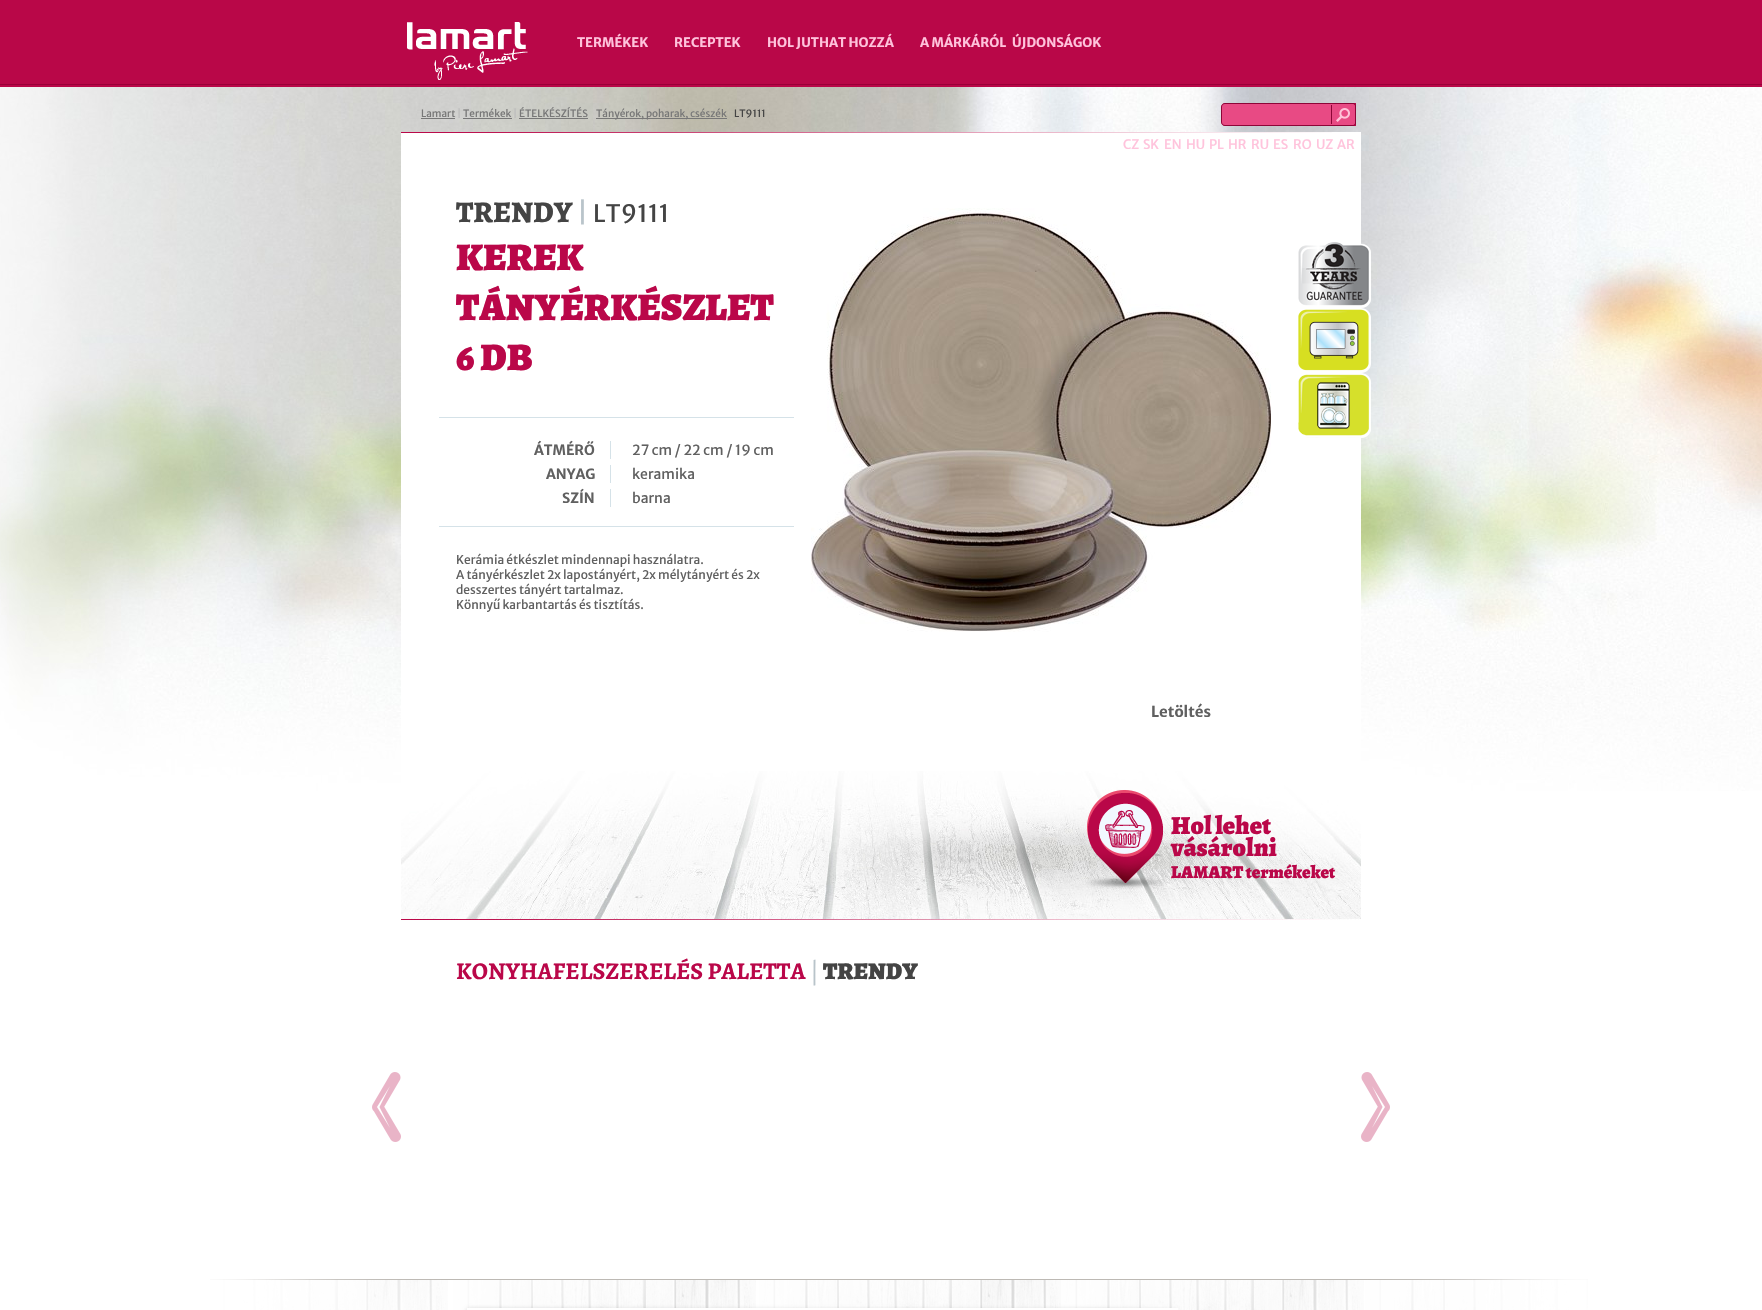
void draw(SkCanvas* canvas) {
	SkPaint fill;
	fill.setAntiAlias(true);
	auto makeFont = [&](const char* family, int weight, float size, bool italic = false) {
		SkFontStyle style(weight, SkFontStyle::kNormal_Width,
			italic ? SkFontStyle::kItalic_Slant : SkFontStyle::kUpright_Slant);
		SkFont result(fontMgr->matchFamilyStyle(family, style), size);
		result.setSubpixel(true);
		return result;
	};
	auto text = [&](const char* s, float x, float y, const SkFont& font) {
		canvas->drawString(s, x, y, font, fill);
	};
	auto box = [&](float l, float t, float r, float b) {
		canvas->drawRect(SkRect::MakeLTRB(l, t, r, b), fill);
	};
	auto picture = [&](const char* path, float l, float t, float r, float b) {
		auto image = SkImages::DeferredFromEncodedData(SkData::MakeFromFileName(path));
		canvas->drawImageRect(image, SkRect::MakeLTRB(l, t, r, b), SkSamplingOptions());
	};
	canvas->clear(0xFFB90748);
	fill.setColor(0xFF990038);
	box(0, 84, 1762, 85);
	picture("image0.png", 407, 22, 528, 80);
	picture("image2.png", 0, 87, 1762, 791);
	fill.setColor(0xFFE84A84);
	canvas->drawPath(SkPathBuilder().moveTo(1225, 103).lineTo(1331, 103).lineTo(1331, 126).lineTo(1225, 126).cubicTo(1223, 126, 1221, 124, 1221, 122).lineTo(1221, 107).cubicTo(1221, 105, 1223, 103, 1225, 103).close().detach(), fill);
	fill.setColor(0xFF8D0537);
	canvas->drawPath(SkPathBuilder(SkPathFillType::kEvenOdd).moveTo(1225, 103).lineTo(1331, 103).lineTo(1331, 126).lineTo(1225, 126).cubicTo(1223, 126, 1221, 124, 1221, 122).lineTo(1221, 107).cubicTo(1221, 105, 1223, 103, 1225, 103).close().moveTo(1225, 104).lineTo(1331, 104).lineTo(1331, 125).lineTo(1225, 125).cubicTo(1223, 125, 1222, 124, 1222, 122).lineTo(1222, 107).cubicTo(1222, 105, 1223, 104, 1225, 104).close().detach(), fill);
	picture("image1.png", 1331, 103, 1356, 126);
	fill.setColor(0xFFFFFFFF);
	box(0, 791, 1762, 1310);
	fill.setColor(0xFF777777);
	box(421, 118, 455, 119);
	box(463, 118, 512, 119);
	box(519, 118, 588, 119);
	box(596, 118, 727, 119);
	fill.setColor(0xFFFFFFFF);
	box(401, 132, 1361, 791);
	picture("image3.png", 401, 132, 1332, 133);
	picture("image4.png", 401, 771, 1361, 920);
	picture("image5.png", 1298, 242, 1371, 308);
	picture("image6.png", 1298, 308, 1371, 373);
	picture("image7.png", 1298, 373, 1371, 438);
	fill.setColor(0xFFD5E2E8);
	box(439, 417, 794, 418);
	box(439, 526, 794, 527);
	box(610, 441, 611, 459);
	box(610, 465, 611, 483);
	box(610, 489, 611, 507);
	picture("image8.png", 811, 208, 1271, 632);
	picture("image9.png", 1085, 790, 1165, 889);
	picture("image10.png", 372, 1072, 401, 1142);
	picture("image11.png", 1361, 1072, 1390, 1142);
	picture("image12.png", 210, 1279, 1588, 1310);
	auto font1 = makeFont("Merriweather Sans", 700, 13);
	fill.setColor(0xFFFFC3DC);
	text("TERMÉKEK", 577, 47, font1);
	text("RECEPTEK", 674, 47, font1);
	text("HOL JUTHAT HOZZÁ", 767, 47, font1);
	text("A MÁRKÁRÓL", 920, 47, font1);
	text("ÚJDONSÁGOK", 1012, 47, font1);
	auto font2 = makeFont("Merriweather Sans", 400, 13);
	text("CZ", 1123, 149, font2);
	text("SK", 1143, 149, font2);
	text("EN", 1164, 149, font2);
	text("HU", 1186, 149, font2);
	text("PL", 1209, 149, font2);
	text("HR", 1228, 149, font2);
	text("RU", 1251, 149, font2);
	text("ES", 1273, 149, font2);
	text("RO", 1293, 149, font2);
	text("UZ", 1316, 149, font2);
	text("AR", 1337, 149, font2);
	auto font3 = makeFont("Merriweather Sans", 400, 10);
	fill.setColor(0xFF777777);
	text("Lamart", 421, 117, font3);
	fill.setColor(0xFFBCBCBC);
	text("|", 457, 117, font3);
	fill.setColor(0xFF777777);
	text("Termékek", 463, 117, font3);
	fill.setColor(0xFFBCBCBC);
	text("|", 513, 117, font3);
	fill.setColor(0xFF777777);
	text("ÉTELKÉSZÍTÉS", 519, 117, font3);
	text("Tányérok, poharak, csészék", 596, 117, font3);
	fill.setColor(0xFF444444);
	text("LT9111", 734, 117, font3);
	auto font4 = makeFont("Alegreya", 800, 30);
	text("TRENDY", 456, 222, font4);
	auto font5 = makeFont("Merriweather Sans", 400, 26);
	fill.setColor(0xFFB9C4CA);
	text("|", 577, 222, font5);
	auto font6 = makeFont("Merriweather Sans", 400, 24);
	fill.setColor(0xFF444444);
	text("LT9111", 593, 222, font6);
	auto font7 = makeFont("Alegreya", 900, 39);
	fill.setColor(0xFFBA0749);
	text("KEREK", 456, 270, font7);
	text("TÁNYÉRKÉSZLET", 456, 320, font7);
	text("6 DB", 456, 370, font7);
	auto font8 = makeFont("Merriweather Sans", 700, 14);
	fill.setColor(0xFF606060);
	text("ÁTMÉRŐ", 534, 455, font8);
	auto font9 = makeFont("Merriweather Sans", 400, 14);
	text("27 cm / 22 cm / 19 cm", 632, 455, font9);
	text("ANYAG", 546, 479, font8);
	text("keramika", 632, 479, font9);
	text("SZÍN", 562, 503, font8);
	text("barna", 632, 503, font9);
	auto font10 = makeFont("Merriweather Sans", 400, 12);
	text("Kerámia étkészlet mindennapi használatra.", 456, 564, font10);
	text("A tányérkészlet 2x lapostányért, 2x mélytányért és 2x", 456, 579, font10);
	text("desszertes tányért tartalmaz.", 456, 594, font10);
	text("Könnyű karbantartás és tisztítás.", 456, 609, font10);
	auto font11 = makeFont("Merriweather Sans", 700, 15);
	text("Letöltés", 1151, 717, font11);
	auto font12 = makeFont("Alegreya", 900, 26);
	fill.setColor(0xFFBA0749);
	text("Hol lehet", 1171, 834, font12);
	text("vásárolni", 1171, 856, font12);
	auto font13 = makeFont("Alegreya", 900, 18);
	text("LAMART termékeket", 1171, 878, font13);
	auto font14 = makeFont("Alegreya", 700, 24);
	text("KONYHAFELSZERELÉS PALETTA", 456, 979, font14);
	auto font15 = makeFont("Alegreya", 400, 24);
	fill.setColor(0xFFB9C4CA);
	text("|", 810, 979, font15);
	auto font16 = makeFont("Alegreya", 900, 24);
	fill.setColor(0xFF444444);
	text("TRENDY", 823, 979, font16);
}
